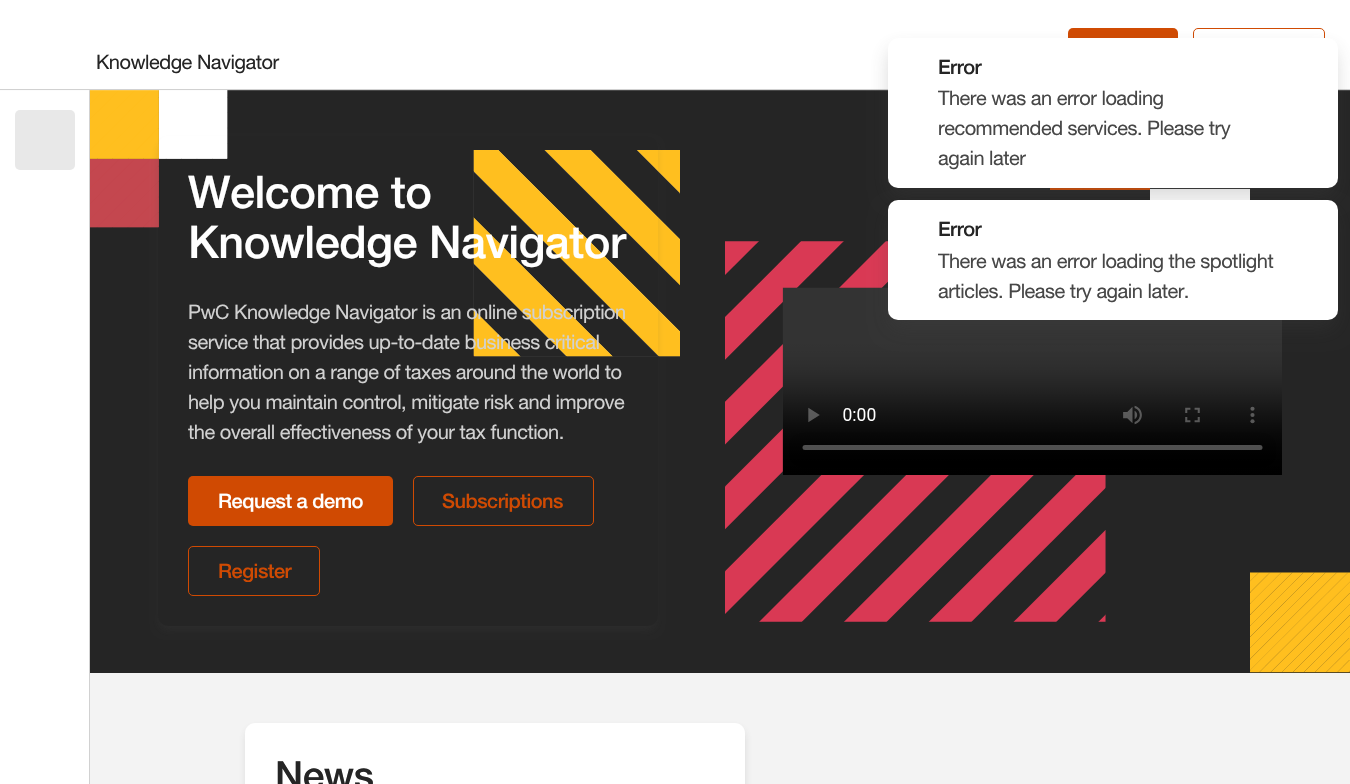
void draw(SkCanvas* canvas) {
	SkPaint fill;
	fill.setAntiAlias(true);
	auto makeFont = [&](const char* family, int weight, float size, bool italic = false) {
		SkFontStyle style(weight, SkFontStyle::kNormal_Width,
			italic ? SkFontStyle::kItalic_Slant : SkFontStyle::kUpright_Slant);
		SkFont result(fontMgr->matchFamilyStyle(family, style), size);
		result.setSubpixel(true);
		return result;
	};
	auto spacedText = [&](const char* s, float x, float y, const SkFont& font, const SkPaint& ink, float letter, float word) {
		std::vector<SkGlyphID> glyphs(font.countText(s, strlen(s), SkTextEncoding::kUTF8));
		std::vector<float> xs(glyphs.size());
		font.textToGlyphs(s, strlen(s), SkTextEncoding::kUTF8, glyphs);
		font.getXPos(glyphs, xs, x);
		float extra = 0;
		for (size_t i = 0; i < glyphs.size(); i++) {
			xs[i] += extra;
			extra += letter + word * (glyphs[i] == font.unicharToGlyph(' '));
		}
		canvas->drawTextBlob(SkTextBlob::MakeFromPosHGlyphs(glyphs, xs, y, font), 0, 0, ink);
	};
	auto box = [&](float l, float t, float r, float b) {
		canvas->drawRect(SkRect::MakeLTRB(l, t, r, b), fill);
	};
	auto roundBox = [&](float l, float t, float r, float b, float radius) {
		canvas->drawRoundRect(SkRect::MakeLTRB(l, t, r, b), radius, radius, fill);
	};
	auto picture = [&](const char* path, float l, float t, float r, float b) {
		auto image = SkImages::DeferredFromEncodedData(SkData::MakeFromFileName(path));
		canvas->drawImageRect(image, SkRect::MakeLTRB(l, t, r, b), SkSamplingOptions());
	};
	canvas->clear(0xFFFFFFFF);
	fill.setColor(0xFFD1D1D1);
	box(89, 90, 90, 784);
	fill.setColor(0xFF252525);
	box(90, 90, 1350, 673);
	picture("image0.png", 90, 90, 228, 228);
	canvas->save();
	canvas->clipRect(SkRect::MakeLTRB(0, 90, 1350, 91));
	fill.setColor(0xFFF3F3F3);
	fill.setMaskFilter(SkMaskFilter::MakeBlur(kNormal_SkBlurStyle, 0.5f));
	canvas->drawRect(SkRect::MakeLTRB(0, 0, 1350, 90), fill);
	fill.setMaskFilter(nullptr);
	canvas->restore();
	fill.setColor(0xFFD1D1D1);
	box(0, 89, 1350, 90);
	fill.setColor(0xFFD04A02);
	roundBox(1068, 28, 1178, 78, 5);
	fill.setStyle(SkPaint::kStroke_Style);
	fill.setStrokeWidth(1);
	canvas->drawRoundRect(SkRect::MakeLTRB(1193.5f, 28.5f, 1324.5f, 77.5f), 4.5f, 4.5f, fill);
	picture("image1.png", 473, 150, 1350, 673);
	fill.setStyle(SkPaint::kFill_Style);
	fill.setColor(0x3D474747);
	fill.setMaskFilter(SkMaskFilter::MakeBlur(kNormal_SkBlurStyle, 10));
	canvas->drawRoundRect(SkRect::MakeLTRB(890, 50, 1335, 195), 8, 8, fill);
	fill.setMaskFilter(nullptr);
	fill.setColor(0xFFFFFFFF);
	roundBox(888, 38, 1338, 188, 10);
	picture("image2.png", 782, 287, 1282, 475);
	fill.setColor(0x3D474747);
	fill.setMaskFilter(SkMaskFilter::MakeBlur(kNormal_SkBlurStyle, 10));
	canvas->drawRoundRect(SkRect::MakeLTRB(890, 213, 1335, 328), 8, 8, fill);
	fill.setMaskFilter(nullptr);
	fill.setColor(0xFFFFFFFF);
	roundBox(888, 200, 1338, 320, 10);
	fill.setColor(0xFFE8E8E8);
	roundBox(15, 110, 75, 170, 5);
	canvas->save();
	canvas->clipPath(SkPathBuilder(SkPathFillType::kEvenOdd).moveTo(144, 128).lineTo(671, 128).lineTo(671, 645).lineTo(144, 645).close().moveTo(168, 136).lineTo(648, 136).cubicTo(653.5f, 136, 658, 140.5f, 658, 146).lineTo(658, 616).cubicTo(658, 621.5f, 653.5f, 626, 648, 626).lineTo(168, 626).cubicTo(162.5f, 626, 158, 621.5f, 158, 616).lineTo(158, 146).cubicTo(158, 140.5f, 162.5f, 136, 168, 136).close().detach(), true);
	fill.setColor(0x3D474747);
	fill.setMaskFilter(SkMaskFilter::MakeBlur(kNormal_SkBlurStyle, 5));
	canvas->drawRoundRect(SkRect::MakeLTRB(160, 144, 655, 629), 8, 8, fill);
	fill.setMaskFilter(nullptr);
	canvas->restore();
	fill.setColor(0xFFD04A02);
	roundBox(188, 476, 393, 526, 5);
	fill.setStyle(SkPaint::kStroke_Style);
	canvas->drawRoundRect(SkRect::MakeLTRB(413.5f, 476.5f, 593.5f, 525.5f), 4.5f, 4.5f, fill);
	canvas->drawRoundRect(SkRect::MakeLTRB(188.5f, 546.5f, 319.5f, 595.5f), 4.5f, 4.5f, fill);
	fill.setStyle(SkPaint::kFill_Style);
	fill.setColor(0xFFF3F3F3);
	box(90, 673, 1350, 784);
	fill.setColor(0x3D474747);
	fill.setMaskFilter(SkMaskFilter::MakeBlur(kNormal_SkBlurStyle, 5));
	canvas->drawRoundRect(SkRect::MakeLTRB(248, 730, 743, 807), 8, 8, fill);
	fill.setMaskFilter(nullptr);
	fill.setColor(0xFFFFFFFF);
	canvas->drawPath(SkPathBuilder().moveTo(255, 723).lineTo(735, 723).cubicTo(740.5f, 723, 745, 727.5f, 745, 733).lineTo(745, 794).lineTo(245, 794).lineTo(245, 733).cubicTo(245, 727.5f, 249.5f, 723, 255, 723).close().detach(), fill);
	auto font1 = makeFont("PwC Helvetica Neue", 400, 20);
	fill.setColor(0xFF252525);
	spacedText("Knowledge Navigator", 96, 69, font1, fill, -0.5f, 0);
	auto font2 = makeFont("PwC Helvetica Neue", 500, 20);
	spacedText("Error", 938, 74, font2, fill, -0.5f, 0);
	fill.setColor(0xFF474747);
	spacedText("There was an error loading", 938, 105, font1, fill, -0.5f, 0);
	spacedText("recommended services. Please try", 938, 135, font1, fill, -0.5f, 0);
	spacedText("again later", 938, 165, font1, fill, -0.5f, 0);
	fill.setColor(0xFF252525);
	spacedText("Error", 938, 236, font2, fill, -0.5f, 0);
	fill.setColor(0xFF474747);
	spacedText("There was an error loading the spotlight", 938, 268, font1, fill, -0.5f, 0);
	spacedText("articles. Please try again later.", 938, 298, font1, fill, -0.5f, 0);
	auto font3 = makeFont("PwC Helvetica Neue", 500, 45);
	fill.setColor(0xFFFFFFFF);
	spacedText("Welcome to", 188, 208, font3, fill, -0.5f, 0);
	spacedText("Knowledge Navigator", 188, 258, font3, fill, -0.5f, 0);
	fill.setColor(0xFFD1D1D1);
	spacedText("PwC Knowledge Navigator is an online subscription", 188, 319, font1, fill, -0.5f, 0);
	spacedText("service that provides up-to-date business critical", 188, 349, font1, fill, -0.5f, 0);
	spacedText("information on a range of taxes around the world to", 188, 379, font1, fill, -0.5f, 0);
	spacedText("help you maintain control, mitigate risk and improve", 188, 409, font1, fill, -0.5f, 0);
	spacedText("the overall effectiveness of your tax function.", 188, 439, font1, fill, -0.5f, 0);
	fill.setColor(0xFFFFFFFF);
	spacedText("Request a demo", 218, 508, font2, fill, -0.5f, 0);
	fill.setColor(0xFFD04A02);
	spacedText("Subscriptions", 442, 508, font2, fill, -0.5f, 0);
	spacedText("Register", 218, 578, font2, fill, -0.5f, 0);
	auto font4 = makeFont("PwC Helvetica Neue", 500, 39);
	fill.setColor(0xFF252525);
	spacedText("News", 275, 789, font4, fill, -0.5f, 0);
}
